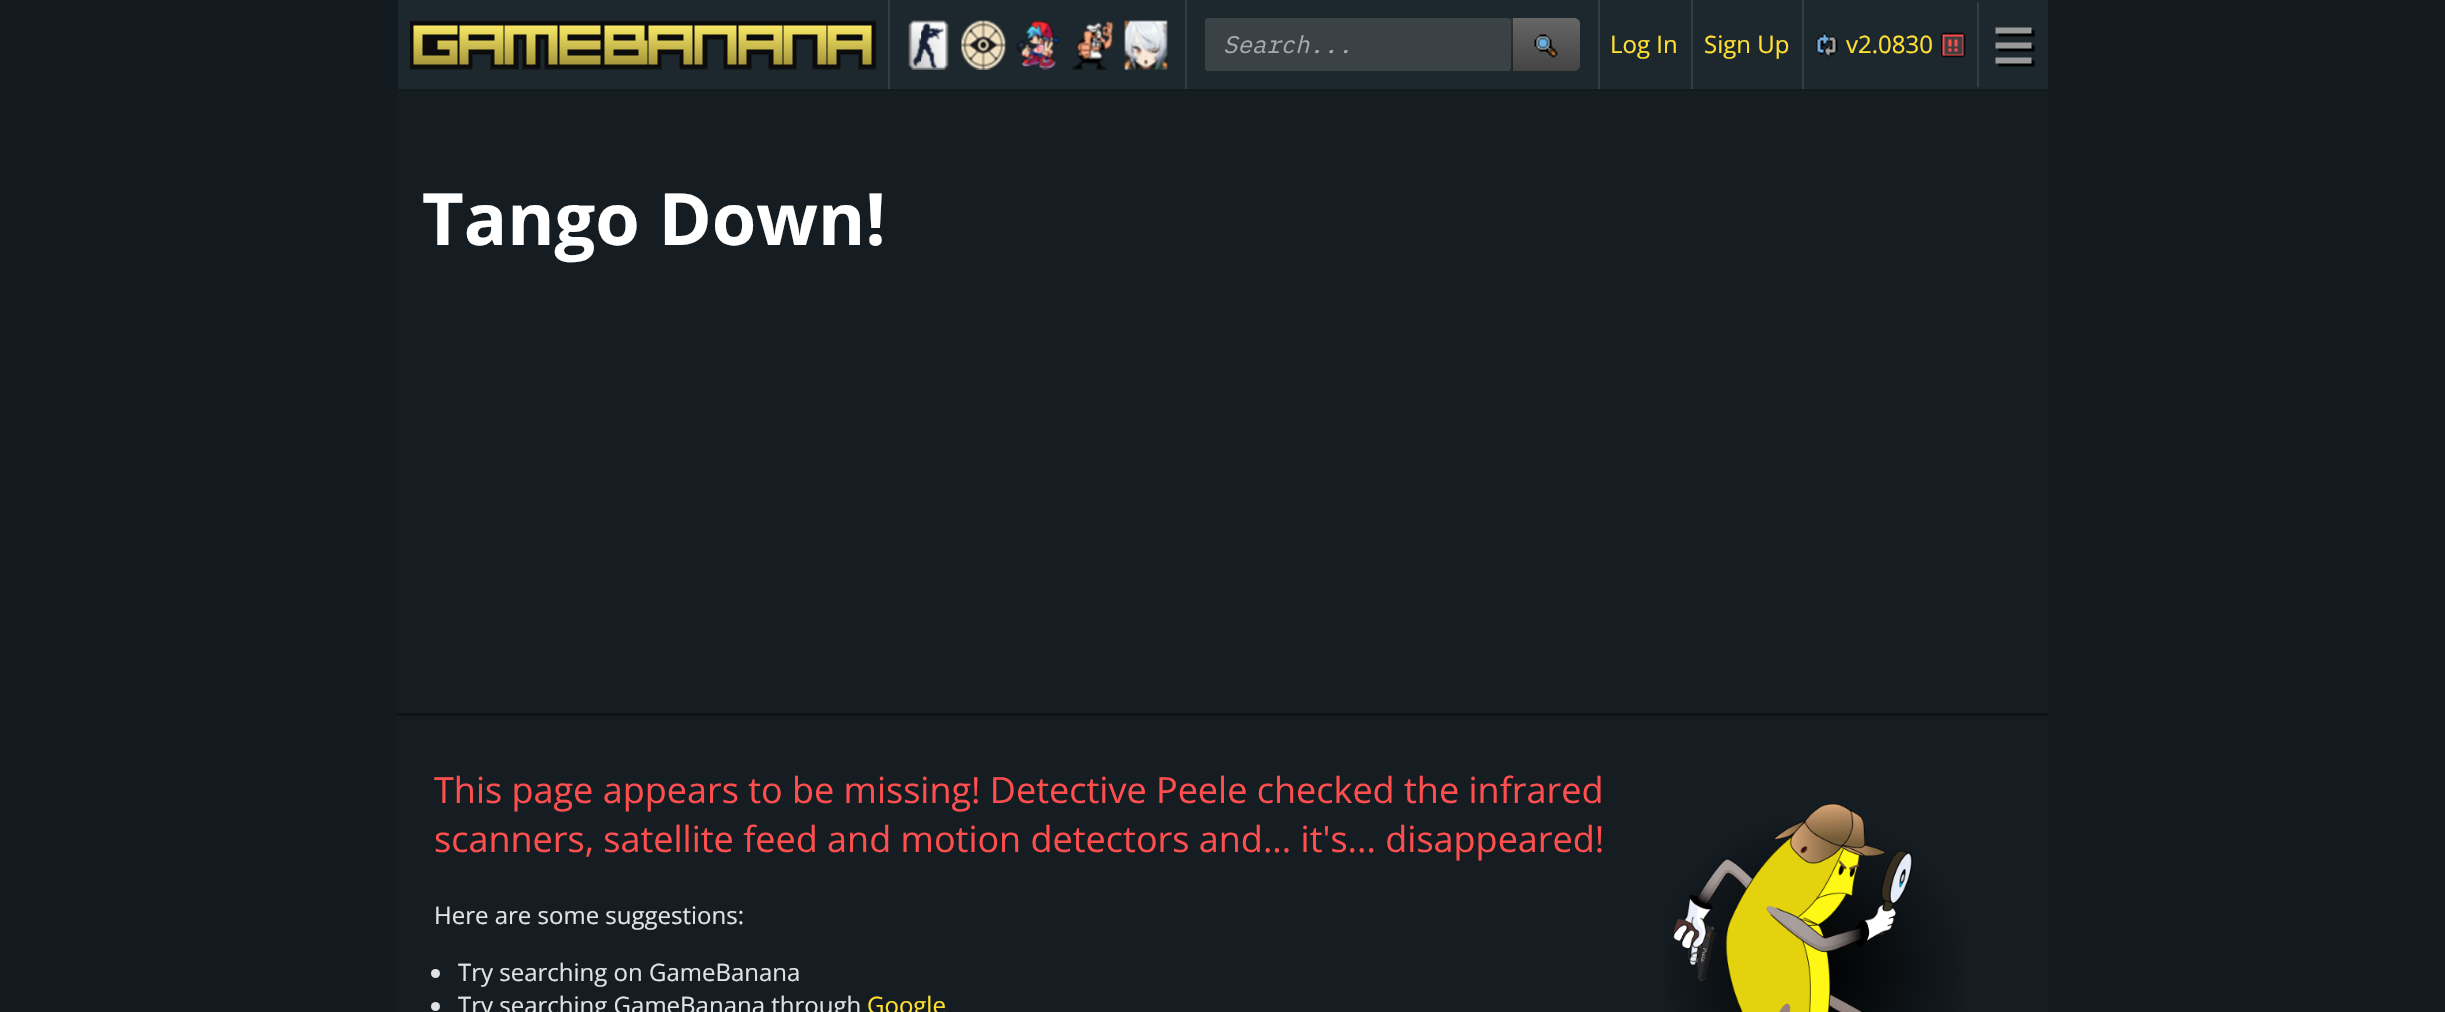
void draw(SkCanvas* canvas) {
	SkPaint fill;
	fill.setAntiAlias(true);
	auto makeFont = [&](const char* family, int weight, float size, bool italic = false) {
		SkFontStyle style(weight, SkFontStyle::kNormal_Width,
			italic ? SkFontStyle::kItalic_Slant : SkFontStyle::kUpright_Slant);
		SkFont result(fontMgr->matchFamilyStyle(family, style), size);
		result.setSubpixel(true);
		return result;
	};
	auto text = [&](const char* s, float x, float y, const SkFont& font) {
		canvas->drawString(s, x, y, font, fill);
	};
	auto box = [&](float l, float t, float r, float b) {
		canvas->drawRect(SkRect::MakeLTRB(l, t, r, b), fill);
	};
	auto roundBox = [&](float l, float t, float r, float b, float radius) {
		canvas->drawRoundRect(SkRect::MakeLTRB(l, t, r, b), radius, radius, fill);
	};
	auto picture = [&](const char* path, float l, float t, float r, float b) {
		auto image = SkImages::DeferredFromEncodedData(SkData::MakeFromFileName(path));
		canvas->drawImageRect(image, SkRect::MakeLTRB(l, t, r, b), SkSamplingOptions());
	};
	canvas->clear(0xFF131A20);
	fill.setColor(0xFF1C272E);
	box(398, 0, 2048, 89);
	fill.setColor(0xFF151D23);
	box(398, 89, 2048, 90);
	picture("image0.png", 410, 20, 877, 70);
	fill.setColor(0xFF333D43);
	box(888, 0, 890, 89);
	picture("image1.png", 908, 20, 949, 70);
	picture("image2.png", 961, 20, 1006, 70);
	picture("image3.png", 1016, 20, 1060, 70);
	picture("image4.png", 1071, 20, 1114, 70);
	picture("image5.png", 1124, 20, 1168, 70);
	box(1185, 0, 1187, 89);
	fill.setColor(0xFF3A4246);
	roundBox(1205, 18, 1511, 71, 3);
	{
		const SkColor colors[] = {0xFF666666, 0xFF444444};
		const float stops[] = {0, 1};
		const SkPoint ends[] = {{1546, 18}, {1546, 71}};
		fill.setShader(SkGradientShader::MakeLinear(ends, colors, stops, 2, SkTileMode::kClamp));
		fill.setAlpha(255);
	}
	canvas->drawPath(SkPathBuilder().moveTo(1511, 18).lineTo(1574, 18).cubicTo(1577.5f, 18, 1580, 20.5f, 1580, 24).lineTo(1580, 65).cubicTo(1580, 68.5f, 1577.5f, 71, 1574, 71).lineTo(1511, 71).close().detach(), fill);
	{
		const SkColor colors[] = {0xFF333333, 0xFF222222};
		const float stops[] = {0, 1};
		const SkPoint ends[] = {{1546, 18}, {1546, 71}};
		fill.setShader(SkGradientShader::MakeLinear(ends, colors, stops, 2, SkTileMode::kClamp));
		fill.setAlpha(255);
	}
	box(1511, 18, 1513, 71);
	picture("image6.png", 1534, 34, 1558, 58);
	fill.setShader(nullptr);
	fill.setColor(0xFF333D43);
	box(1598, 0, 1600, 89);
	box(1691, 0, 1693, 89);
	box(1802, 0, 1804, 89);
	picture("image7.png", 1816, 32, 1838, 58);
	picture("image8.png", 1941, 32, 1966, 58);
	box(1977, 2, 1979, 87);
	picture("image9.png", 1995, 27, 2035, 67);
	fill.setColor(0xFF151D23);
	box(398, 91, 2048, 1012);
	fill.setColor(0xFF10161A);
	box(398, 90, 2048, 91);
	fill.setColor(0xFF0E1317);
	box(398, 713, 2048, 716);
	fill.setColor(0xFFE2E2E2);
	canvas->drawCircle(435.5f, 973.5f, 4.5f, fill);
	canvas->drawCircle(435.5f, 1006.5f, 4.5f, fill);
	{
		const SkColor colors[] = {0xFF000000, 0xFF151D23};
		const float stops[] = {0, 0.7f};
		fill.setShader(SkGradientShader::MakeRadial({1814, 971}, 231, colors, stops, 2, SkTileMode::kClamp));
		fill.setAlpha(255);
	}
	box(1664, 821, 1964, 1012);
	picture("image10.png", 1672, 803, 1913, 1012);
	auto font1 = makeFont("IBM Plex Mono", 400, 24, true);
	fill.setShader(nullptr);
	fill.setColor(0xFFA6AAAC);
	text("Search...", 1223, 53, font1);
	auto font2 = makeFont("Open Sans", 400, 24);
	fill.setColor(0xFFFFE033);
	text("Log In", 1610, 53, font2);
	text("Sign Up", 1704, 53, font2);
	text("v2.0830", 1846, 53, font2);
	auto font3 = makeFont("Open Sans", 700, 72);
	fill.setColor(0xFFFFFFFF);
	text("Tango Down!", 422, 245, font3);
	auto font4 = makeFont("Open Sans", 400, 36);
	fill.setColor(0xFFFF4E4E);
	text("This page appears to be missing! Detective Peele checked the infrared", 434, 803, font4);
	text("scanners, satellite feed and motion detectors and... it's... disappeared!", 434, 852, font4);
	fill.setColor(0xFFE2E2E2);
	text("Here are some suggestions:", 434, 924, font2);
	text("Try searching on GameBanana", 458, 981, font2);
	text("Try searching GameBanana through", 458, 1014, font2);
	fill.setColor(0xFFFFE033);
	text("Google", 867, 1014, font2);
}
